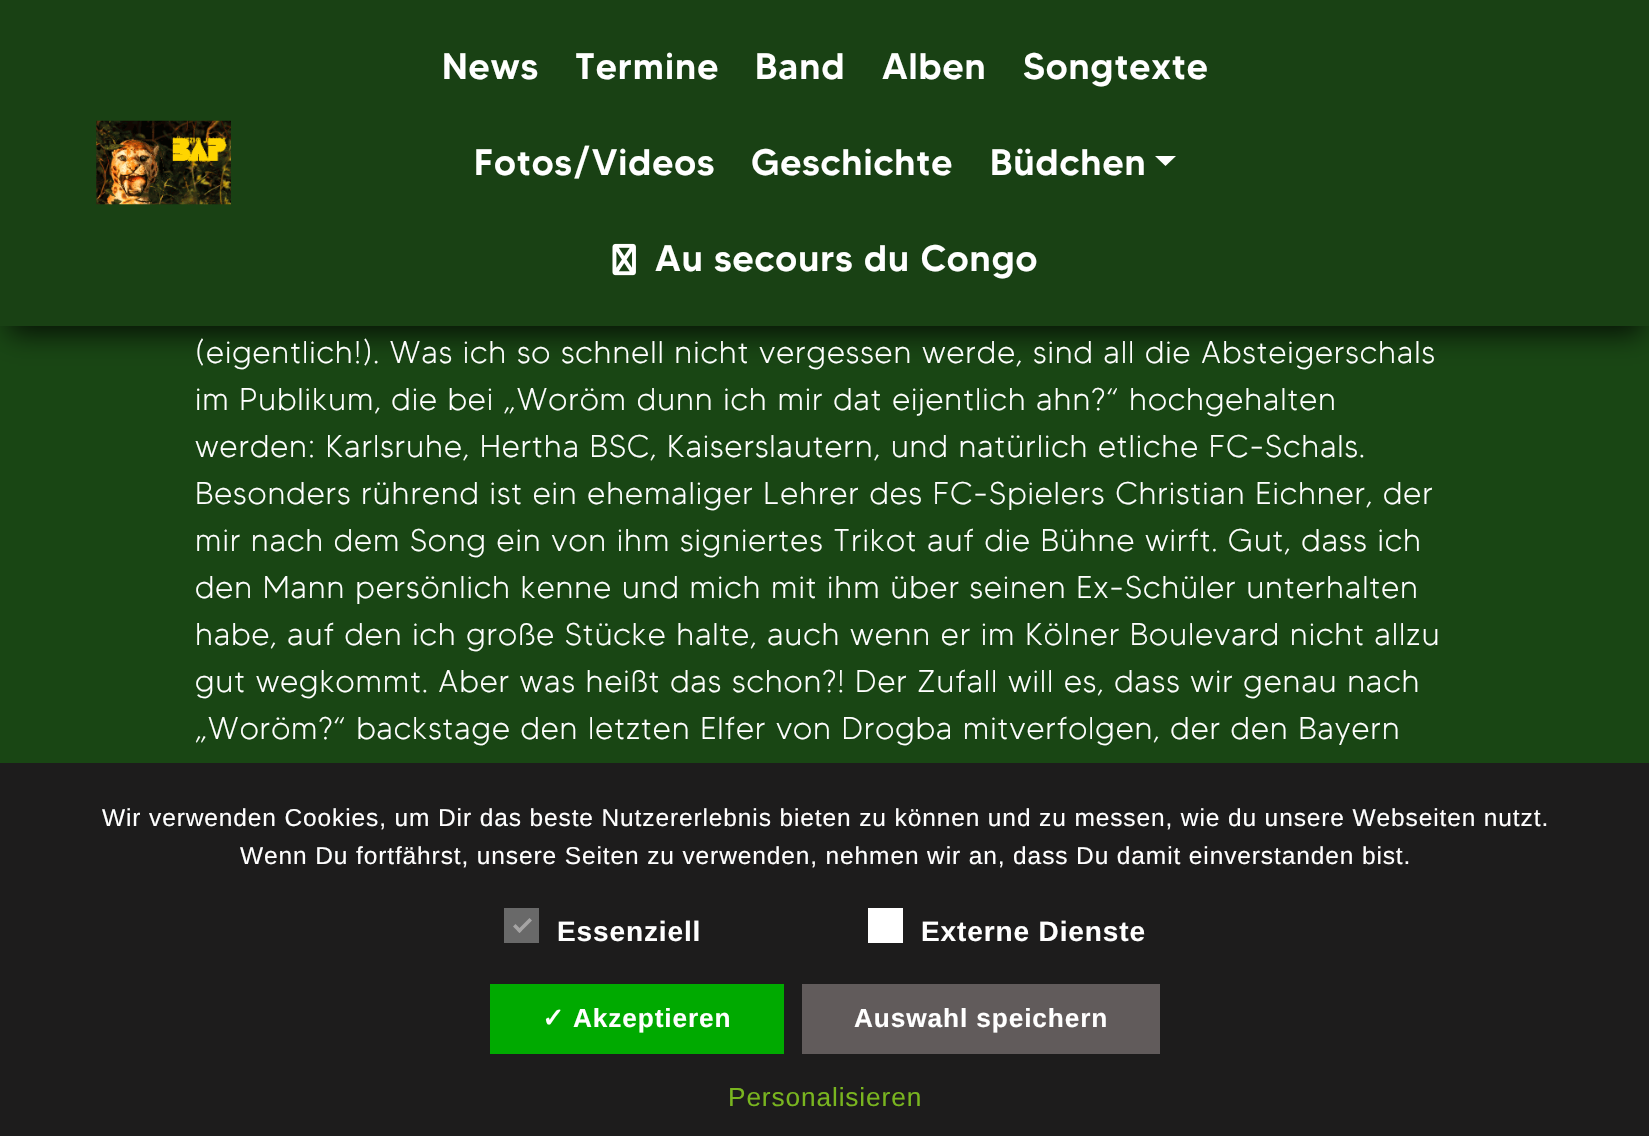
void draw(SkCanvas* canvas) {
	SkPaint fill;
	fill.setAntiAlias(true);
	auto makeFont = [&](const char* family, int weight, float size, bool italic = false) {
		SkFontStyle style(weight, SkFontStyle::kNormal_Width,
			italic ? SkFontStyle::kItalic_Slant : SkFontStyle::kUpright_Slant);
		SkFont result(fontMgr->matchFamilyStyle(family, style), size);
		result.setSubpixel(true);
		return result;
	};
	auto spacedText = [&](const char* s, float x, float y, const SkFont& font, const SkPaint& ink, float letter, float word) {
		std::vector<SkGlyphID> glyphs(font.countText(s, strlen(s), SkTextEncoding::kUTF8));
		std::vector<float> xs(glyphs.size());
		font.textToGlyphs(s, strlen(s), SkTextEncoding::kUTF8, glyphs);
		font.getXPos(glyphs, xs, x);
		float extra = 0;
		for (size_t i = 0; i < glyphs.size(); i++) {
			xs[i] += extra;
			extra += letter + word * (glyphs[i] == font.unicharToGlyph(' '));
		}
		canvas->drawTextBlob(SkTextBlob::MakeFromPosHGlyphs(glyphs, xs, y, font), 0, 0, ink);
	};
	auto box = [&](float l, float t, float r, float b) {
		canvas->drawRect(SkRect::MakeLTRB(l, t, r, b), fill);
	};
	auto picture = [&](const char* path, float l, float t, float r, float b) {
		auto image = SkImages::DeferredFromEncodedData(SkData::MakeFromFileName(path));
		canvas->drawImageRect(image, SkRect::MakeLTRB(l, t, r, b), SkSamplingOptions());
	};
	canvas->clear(0xFF194614);
	fill.setColor(0xBF000000);
	fill.setMaskFilter(SkMaskFilter::MakeBlur(kNormal_SkBlurStyle, 13));
	canvas->drawRect(SkRect::MakeLTRB(9, 25, 1642, 334), fill);
	fill.setMaskFilter(nullptr);
	fill.setColor(0xFF194114);
	box(0, 0, 1649, 326);
	picture("image0.png", 96, 120, 231, 205);
	fill.setColor(0xFFFFFFFF);
	canvas->drawPath(SkPathBuilder().moveTo(1155, 156).lineTo(1176, 156).lineTo(1165.5f, 166).close().detach(), fill);
	picture("image1.png", 612, 243, 636, 276);
	fill.setColor(0xFF1D1C1C);
	box(0, 763, 1649, 1136);
	fill.setColor(0xFF696969);
	box(504, 908, 539, 943);
	fill.setColor(0xFFA5A4A4);
	canvas->drawPath(SkPathBuilder().moveTo(529.5f, 918).lineTo(532, 920.5f).lineTo(519.5f, 933).lineTo(517, 930.5f).close().detach(), fill);
	canvas->drawPath(SkPathBuilder().moveTo(515.5f, 924).lineTo(522, 930.5f).lineTo(519.5f, 933).lineTo(513, 926.5f).close().detach(), fill);
	fill.setColor(0xFFFFFFFF);
	box(868, 908, 903, 943);
	fill.setColor(0xFF00AA00);
	box(490, 984, 784, 1054);
	fill.setColor(0xFF615B5B);
	box(802, 984, 1160, 1054);
	auto font1 = makeFont("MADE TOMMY", 500, 36.75f);
	fill.setColor(0xFFFFFFFF);
	spacedText("News", 442, 79, font1, fill, 0.88f, 0);
	spacedText("Termine", 575, 79, font1, fill, 0.88f, 0);
	spacedText("Band", 755, 79, font1, fill, 0.88f, 0);
	spacedText("Alben", 882, 79, font1, fill, 0.88f, 0);
	spacedText("Songtexte", 1023, 79, font1, fill, 0.88f, 0);
	spacedText("Fotos/Videos", 474, 175, font1, fill, 0.88f, 0);
	spacedText("Geschichte", 751, 175, font1, fill, 0.88f, 0);
	spacedText("Büdchen", 990, 175, font1, fill, 0.88f, 0);
	spacedText("Au secours du Congo", 655, 271, font1, fill, 0.88f, 0);
	auto font2 = makeFont("MADE TOMMY", 300, 31.35f);
	spacedText("(eigentlich!). Was ich so schnell nicht vergessen werde, sind all die Absteigerschals", 195, 363, font2, fill, 0.88f, 0);
	spacedText("im Publikum, die bei „Woröm dunn ich mir dat eijentlich ahn?“ hochgehalten", 195, 410, font2, fill, 0.88f, 0);
	spacedText("werden: Karlsruhe, Hertha BSC, Kaiserslautern, und natürlich etliche FC-Schals.", 195, 457, font2, fill, 0.88f, 0);
	spacedText("Besonders rührend ist ein ehemaliger Lehrer des FC-Spielers Christian Eichner, der", 195, 504, font2, fill, 0.88f, 0);
	spacedText("mir nach dem Song ein von ihm signiertes Trikot auf die Bühne wirft. Gut, dass ich", 195, 551, font2, fill, 0.88f, 0);
	spacedText("den Mann persönlich kenne und mich mit ihm über seinen Ex-Schüler unterhalten", 195, 598, font2, fill, 0.88f, 0);
	spacedText("habe, auf den ich große Stücke halte, auch wenn er im Kölner Boulevard nicht allzu", 195, 645, font2, fill, 0.88f, 0);
	spacedText("gut wegkommt. Aber was heißt das schon?! Der Zufall will es, dass wir genau nach", 195, 692, font2, fill, 0.88f, 0);
	spacedText("„Woröm?“ backstage den letzten Elfer von Drogba mitverfolgen, der den Bayern", 195, 739, font2, fill, 0.88f, 0);
	auto font3 = makeFont("Liberation Sans", 400, 24.5f);
	spacedText("Wir verwenden Cookies, um Dir das beste Nutzererlebnis bieten zu können und zu messen, wie du unsere Webseiten nutzt.", 102, 826, font3, fill, 0.88f, 0);
	spacedText("Wenn Du fortfährst, unsere Seiten zu verwenden, nehmen wir an, dass Du damit einverstanden bist.", 240, 864, font3, fill, 0.88f, 0);
	auto font4 = makeFont("Liberation Sans", 700, 28);
	spacedText("Essenziell", 557, 941, font4, fill, 0.88f, 0);
	spacedText("Externe Dienste", 921, 941, font4, fill, 0.88f, 0);
	auto font5 = makeFont("DejaVu Sans", 700, 26.25f);
	spacedText("✓", 542, 1027, font5, fill, 0.88f, 0);
	auto font6 = makeFont("Liberation Sans", 700, 26.25f);
	spacedText("Akzeptieren", 573, 1027, font6, fill, 0.88f, 0);
	spacedText("Auswahl speichern", 854, 1027, font6, fill, 0.88f, 0);
	auto font7 = makeFont("Liberation Sans", 400, 26.25f);
	fill.setColor(0xFF79B51F);
	spacedText("Personalisieren", 728, 1106, font7, fill, 0.88f, 0);
}
